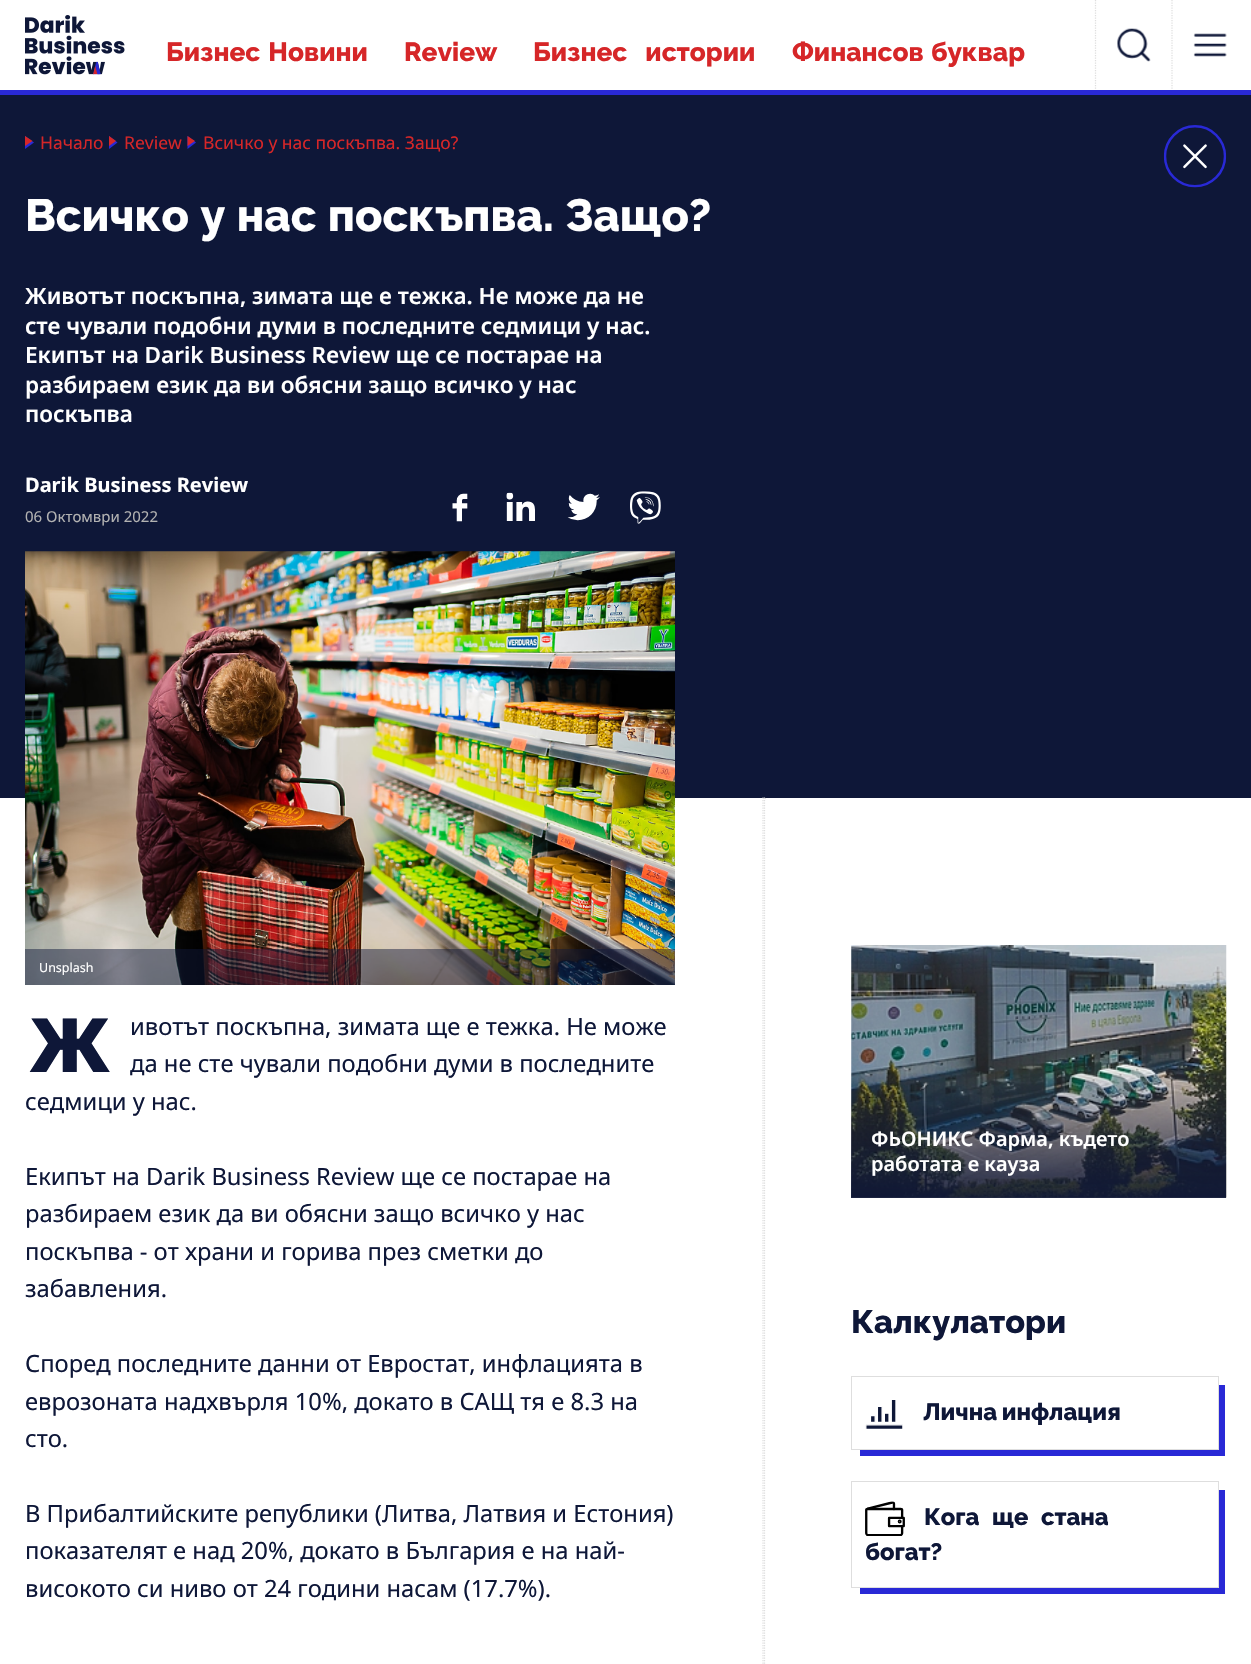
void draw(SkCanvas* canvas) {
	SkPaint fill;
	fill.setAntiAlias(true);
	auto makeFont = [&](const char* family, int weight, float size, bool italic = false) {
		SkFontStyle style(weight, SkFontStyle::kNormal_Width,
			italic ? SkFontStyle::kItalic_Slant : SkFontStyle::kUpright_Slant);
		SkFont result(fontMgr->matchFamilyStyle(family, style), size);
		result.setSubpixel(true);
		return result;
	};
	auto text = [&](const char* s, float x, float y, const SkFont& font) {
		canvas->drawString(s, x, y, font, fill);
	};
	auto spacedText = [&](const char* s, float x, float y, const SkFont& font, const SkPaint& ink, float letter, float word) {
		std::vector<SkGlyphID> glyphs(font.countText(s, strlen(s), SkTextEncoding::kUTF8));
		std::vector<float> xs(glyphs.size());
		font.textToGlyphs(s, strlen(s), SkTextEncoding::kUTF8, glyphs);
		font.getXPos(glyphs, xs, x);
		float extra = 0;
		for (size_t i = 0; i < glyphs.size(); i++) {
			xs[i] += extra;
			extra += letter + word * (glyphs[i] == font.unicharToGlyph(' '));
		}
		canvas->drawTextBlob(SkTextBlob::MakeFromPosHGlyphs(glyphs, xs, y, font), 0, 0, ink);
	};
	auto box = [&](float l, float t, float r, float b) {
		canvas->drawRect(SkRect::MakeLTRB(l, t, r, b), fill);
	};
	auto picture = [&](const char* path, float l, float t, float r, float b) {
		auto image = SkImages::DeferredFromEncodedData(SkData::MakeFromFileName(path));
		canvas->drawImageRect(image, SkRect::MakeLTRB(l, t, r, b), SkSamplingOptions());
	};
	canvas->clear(0xFFFFFFFF);
	fill.setColor(0xFF2929D6);
	box(0, 90, 1251, 95);
	picture("image0.png", 25, 15, 125, 75);
	fill.setStyle(SkPaint::kStroke_Style);
	fill.setStrokeWidth(1.2f);
	fill.setColor(0xFFDEDEDE);
	fill.setPathEffect(SkDashPathEffect::Make({{1.25f, 1.25f}}, 0));
	canvas->drawPath(SkPathBuilder().moveTo(1095.5f, 0).lineTo(1095.5f, 90).detach(), fill);
	fill.setPathEffect(nullptr);
	picture("image1.png", 1117, 28, 1151, 62);
	fill.setPathEffect(SkDashPathEffect::Make({{1.25f, 1.25f}}, 0));
	canvas->drawPath(SkPathBuilder().moveTo(1172, 0).lineTo(1172, 90).detach(), fill);
	fill.setPathEffect(nullptr);
	picture("image2.png", 1193, 33, 1227, 57);
	fill.setStyle(SkPaint::kFill_Style);
	fill.setColor(0xFF0E1738);
	box(0, 95, 1251, 798);
	fill.setColor(0xFF2929D6);
	canvas->drawPath(SkPathBuilder().moveTo(25, 149).lineTo(25, 136).lineTo(34, 142.5f).close().detach(), fill);
	fill.setColor(0xFFD62628);
	canvas->drawPath(SkPathBuilder().moveTo(25, 146).lineTo(25, 136).lineTo(32.5f, 141).close().detach(), fill);
	fill.setColor(0xFF2929D6);
	canvas->drawPath(SkPathBuilder().moveTo(109, 149).lineTo(109, 136).lineTo(117.5f, 142.5f).close().detach(), fill);
	fill.setColor(0xFFD62628);
	canvas->drawPath(SkPathBuilder().moveTo(109, 146).lineTo(109, 136).lineTo(116, 141).close().detach(), fill);
	fill.setColor(0xFF2929D6);
	canvas->drawPath(SkPathBuilder().moveTo(187.5f, 149).lineTo(187.5f, 136).lineTo(196, 142.5f).close().detach(), fill);
	fill.setColor(0xFFD62628);
	canvas->drawPath(SkPathBuilder().moveTo(187.5f, 146).lineTo(187.5f, 136).lineTo(195, 141).close().detach(), fill);
	picture("image3.png", 1163, 125, 1227, 188);
	picture("image4.png", 452, 493, 468, 522);
	picture("image5.png", 506, 492, 535, 521);
	picture("image6.png", 567, 493, 600, 521);
	picture("image7.png", 630, 491, 661, 524);
	picture("image8.png", 25, 551, 675, 985);
	fill.setColor(0x7A0E1738);
	box(25, 949, 675, 985);
	fill.setColor(0xFFDEDEDE);
	box(763, 798, 766, 799);
	fill.setStyle(SkPaint::kStroke_Style);
	fill.setPathEffect(SkDashPathEffect::Make({{1.25f, 1.25f}}, 0));
	canvas->drawPath(SkPathBuilder().moveTo(764.5f, 797.5f).lineTo(764.5f, 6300).detach(), fill);
	fill.setPathEffect(nullptr);
	fill.setPathEffect(SkDashPathEffect::Make({{1.25f, 1.25f}}, 0));
	canvas->drawPath(SkPathBuilder().moveTo(763, 797.5f).lineTo(763, 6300).detach(), fill);
	fill.setPathEffect(nullptr);
	picture("image9.png", 851, 945, 1227, 1198);
	fill.setStyle(SkPaint::kFill_Style);
	{
		const SkColor colors[] = {0xE60E1738, 0x000E1738};
		const float stops[] = {0, 1};
		const SkPoint ends[] = {{1039, 1198}, {1039, 1070}};
		fill.setShader(SkGradientShader::MakeLinear(ends, colors, stops, 2, SkTileMode::kClamp));
		fill.setAlpha(255);
	}
	box(851, 1073, 1226, 1198);
	fill.setShader(nullptr);
	fill.setColor(0xFF2929D6);
	box(860, 1385, 1225, 1456);
	fill.setColor(0xFFFFFFFF);
	box(860, 1385, 1218, 1449);
	fill.setStyle(SkPaint::kStroke_Style);
	fill.setStrokeWidth(1);
	fill.setColor(0xFFDEDEDE);
	canvas->drawRect(SkRect::MakeLTRB(851.5f, 1376.5f, 1218.5f, 1449.5f), fill);
	picture("image10.png", 865, 1400, 903, 1429);
	fill.setStyle(SkPaint::kFill_Style);
	fill.setColor(0xFF2929D6);
	box(860, 1490, 1225, 1594);
	fill.setColor(0xFFFFFFFF);
	box(860, 1490, 1218, 1587);
	fill.setStyle(SkPaint::kStroke_Style);
	fill.setColor(0xFFDEDEDE);
	canvas->drawRect(SkRect::MakeLTRB(851.5f, 1481.5f, 1218.5f, 1587.5f), fill);
	picture("image11.png", 865, 1501, 905, 1536);
	auto font1 = makeFont("Raleway", 100, 26.25f);
	fill.setStyle(SkPaint::kFill_Style);
	fill.setColor(0xFFD62628);
	spacedText("Бизнес Новини", 166, 61, font1, fill, 0, 2);
	text("Review", 404, 61, font1);
	spacedText("Бизнес истории", 533, 61, font1, fill, 0, 12);
	spacedText("Финансов буквар", 792, 61, font1, fill, 0, 1);
	auto font2 = makeFont("Noto Sans", 400, 17.5f);
	text("Начало", 40, 149, font2);
	text("Review", 124, 149, font2);
	text("Всичко у нас поскъпва. Защо?", 203, 149, font2);
	auto font3 = makeFont("Raleway", 100, 45);
	fill.setColor(0xFFFFFFFF);
	spacedText("Всичко у нас поскъпва. Защо?", 25, 231, font3, fill, 0, 1);
	auto font4 = makeFont("Noto Sans", 600, 22.5f);
	text("Животът поскъпна, зимата ще е тежка. Не може да не", 25, 304, font4);
	text("сте чували подобни думи в последните седмици у нас.", 25, 334, font4);
	text("Екипът на Darik Business Review ще се постарае на", 25, 363, font4);
	text("разбираем език да ви обясни защо всичко у нас", 25, 393, font4);
	text("поскъпва", 25, 422, font4);
	auto font5 = makeFont("Noto Sans", 700, 20);
	text("Darik Business Review", 25, 492, font5);
	auto font6 = makeFont("Noto Sans", 400, 15);
	fill.setColor(0xFFB2B2B2);
	text("06 Октомври 2022", 25, 522, font6);
	auto font7 = makeFont("Noto Sans", 400, 12.5f);
	fill.setColor(0xFFFFFFFF);
	text("Unsplash", 39, 972, font7);
	auto font8 = makeFont("Noto Sans", 900, 75);
	fill.setColor(0xFF0E1738);
	text("Ж", 30, 1072, font8);
	auto font9 = makeFont("Noto Sans", 400, 23.75f);
	text("ивотът поскъпна, зимата ще е тежка. Не може", 130, 1035, font9);
	text("да не сте чували подобни думи в последните", 130, 1072, font9);
	text("седмици у нас.", 25, 1110, font9);
	text("Екипът на Darik Business Review ще се постарае на", 25, 1185, font9);
	text("разбираем език да ви обясни защо всичко у нас", 25, 1222, font9);
	text("поскъпва - от храни и горива през сметки до", 25, 1260, font9);
	text("забавления.", 25, 1297, font9);
	text("Според последните данни от Евростат, инфлацията в", 25, 1372, font9);
	text("еврозоната надхвърля 10%, докато в САЩ тя е 8.3 на", 25, 1410, font9);
	text("сто.", 25, 1447, font9);
	text("В Прибалтийските републики (Литва, Латвия и Естония)", 25, 1522, font9);
	text("показателят е над 20%, докато в България е на най-", 25, 1559, font9);
	text("високото си ниво от 24 години насам (17.7%).", 25, 1597, font9);
	auto font10 = makeFont("Noto Sans", 600, 20);
	fill.setColor(0xFFFFFFFF);
	text("ФЬОНИКС Фарма, където", 871, 1146, font10);
	text("работата е кауза", 871, 1171, font10);
	auto font11 = makeFont("Raleway", 100, 32.5f);
	fill.setColor(0xFF0E1738);
	text("Калкулатори", 851, 1333, font11);
	auto font12 = makeFont("Raleway", 100, 23.75f);
	spacedText("Лична инфлация", 923, 1420, font12, fill, 0, -1);
	spacedText("Кога ще стана", 924, 1525, font12, fill, 0, 7);
	text("богат?", 865, 1560, font12);
}
